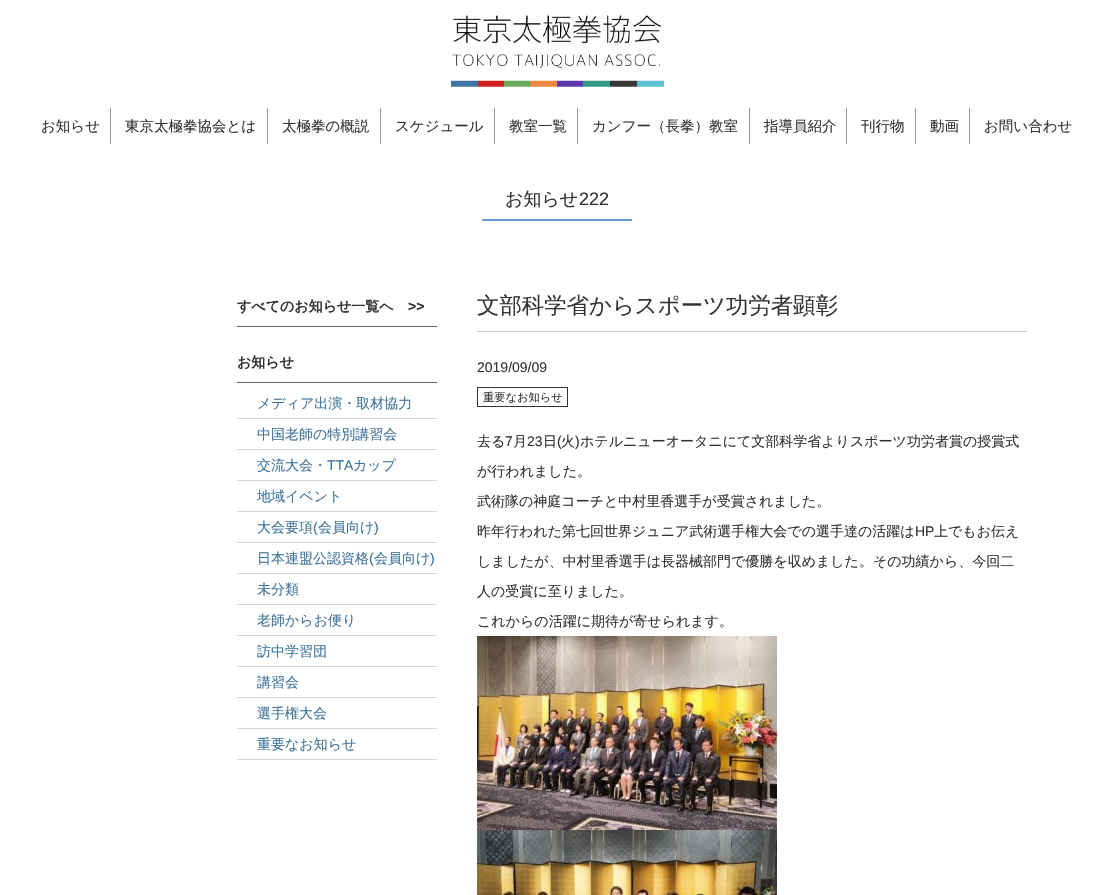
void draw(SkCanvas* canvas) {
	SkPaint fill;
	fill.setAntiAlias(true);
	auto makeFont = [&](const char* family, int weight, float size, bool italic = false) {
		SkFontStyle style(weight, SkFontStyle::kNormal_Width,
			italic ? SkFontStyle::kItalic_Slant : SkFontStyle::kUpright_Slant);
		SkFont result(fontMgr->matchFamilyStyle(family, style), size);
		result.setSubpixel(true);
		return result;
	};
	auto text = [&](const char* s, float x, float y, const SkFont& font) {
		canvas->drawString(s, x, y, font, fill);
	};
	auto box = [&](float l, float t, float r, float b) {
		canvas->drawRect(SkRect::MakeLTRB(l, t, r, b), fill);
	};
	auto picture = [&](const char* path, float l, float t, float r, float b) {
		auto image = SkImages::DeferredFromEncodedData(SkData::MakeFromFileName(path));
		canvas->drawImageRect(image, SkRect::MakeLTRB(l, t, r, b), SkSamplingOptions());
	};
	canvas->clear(0xFFFFFFFF);
	picture("image0.png", 451, 15, 664, 87);
	fill.setColor(0xFF999999);
	box(110, 108, 111, 144);
	box(267, 108, 268, 144);
	box(380, 108, 381, 144);
	box(494, 108, 495, 144);
	box(577, 108, 578, 144);
	box(749, 108, 750, 144);
	box(846, 108, 847, 144);
	box(915, 108, 916, 144);
	box(969, 108, 970, 144);
	fill.setColor(0xFF6699CC);
	box(482, 219, 632, 221);
	fill.setColor(0xFF666666);
	box(237, 326, 437, 327);
	box(237, 382, 437, 383);
	fill.setColor(0xFFD5D5D5);
	box(237, 418, 437, 419);
	box(237, 449, 437, 450);
	box(237, 480, 437, 481);
	box(237, 511, 437, 512);
	box(237, 542, 437, 543);
	box(237, 573, 437, 574);
	box(237, 604, 437, 605);
	box(237, 635, 437, 636);
	box(237, 666, 437, 667);
	box(237, 697, 437, 698);
	box(237, 728, 437, 729);
	box(237, 759, 437, 760);
	fill.setColor(0xFFCCCCCC);
	box(477, 331, 1027, 332);
	fill.setStyle(SkPaint::kStroke_Style);
	fill.setStrokeWidth(1);
	fill.setColor(0xFF333333);
	canvas->drawRect(SkRect::MakeLTRB(477.5f, 387.5f, 567.5f, 406.5f), fill);
	picture("image1.png", 477, 636, 777, 830);
	picture("image2.png", 477, 830, 777, 895);
	auto font1 = makeFont("WenQuanYi Zen Hei", 500, 14.5f);
	fill.setStyle(SkPaint::kFill_Style);
	text("お知らせ", 41, 131, font1);
	text("東京太極拳協会とは", 125, 131, font1);
	text("太極拳の概説", 282, 131, font1);
	text("スケジュール", 395, 131, font1);
	text("教室一覧", 509, 131, font1);
	text("カンフー（長拳）教室", 592, 131, font1);
	text("指導員紹介", 764, 131, font1);
	text("刊行物", 861, 131, font1);
	text("動画", 930, 131, font1);
	text("お問い合わせ", 984, 131, font1);
	auto font2 = makeFont("WenQuanYi Zen Hei", 500, 18);
	text("お知らせ", 505, 205, font2);
	auto font3 = makeFont("Liberation Sans", 400, 18);
	text("222", 579, 205, font3);
	auto font4 = makeFont("WenQuanYi Zen Hei", 700, 14);
	text("すべてのお知らせ一覧へ", 237, 311, font4);
	auto font5 = makeFont("Liberation Sans", 700, 14);
	text(">>", 408, 311, font5);
	text("お知らせ", 237, 367, font4);
	auto font6 = makeFont("WenQuanYi Zen Hei", 500, 14);
	fill.setColor(0xFF3D739B);
	text("メディア出演・取材協力", 257, 408, font6);
	text("中国老師の特別講習会", 257, 439, font6);
	text("交流大会・", 257, 470, font6);
	auto font7 = makeFont("Liberation Sans", 400, 14);
	text("TTA", 327, 470, font7);
	text("カップ", 353, 470, font6);
	text("地域イベント", 257, 501, font6);
	text("大会要項", 257, 532, font6);
	text("(", 313, 532, font7);
	text("会員向け", 318, 532, font6);
	text(")", 374, 532, font7);
	text("日本連盟公認資格", 257, 563, font6);
	text("(", 369, 563, font7);
	text("会員向け", 374, 563, font6);
	text(")", 430, 563, font7);
	text("未分類", 257, 594, font6);
	text("老師からお便り", 257, 625, font6);
	text("訪中学習団", 257, 656, font6);
	text("講習会", 257, 687, font6);
	text("選手権大会", 257, 718, font6);
	text("重要なお知らせ", 257, 749, font6);
	auto font8 = makeFont("WenQuanYi Zen Hei", 500, 22.4f);
	fill.setColor(0xFF333333);
	text("文部科学省からスポーツ功労者顕彰", 477, 313, font8);
	text("2019/09/09", 477, 372, font7);
	auto font9 = makeFont("WenQuanYi Zen Hei", 500, 11.25f);
	text("重要なお知らせ", 483, 401, font9);
	text("去る", 477, 446, font6);
	text("7", 505, 446, font7);
	text("月", 513, 446, font6);
	text("23", 527, 446, font7);
	text("日", 543, 446, font6);
	text("(", 557, 446, font7);
	text("火", 561, 446, font6);
	text(")", 575, 446, font7);
	text("ホテルニューオータニにて文部科学省よりスポーツ功労者賞の授賞式", 580, 446, font6);
	text("が行われました。", 477, 476, font6);
	text("武術隊の神庭コーチと中村里香選手が受賞されました。", 477, 506, font6);
	text("昨年行われた第七回世界ジュニア武術選手権大会での選手達の活躍は", 477, 536, font6);
	text("HP", 915, 536, font7);
	text("上でもお伝え", 934, 536, font6);
	text("しましたが、中村里香選手は長器械部門で優勝を収めました。その功績から、今回二", 477, 566, font6);
	text("人の受賞に至りました。", 477, 596, font6);
	text("これからの活躍に期待が寄せられます。", 477, 626, font6);
}
